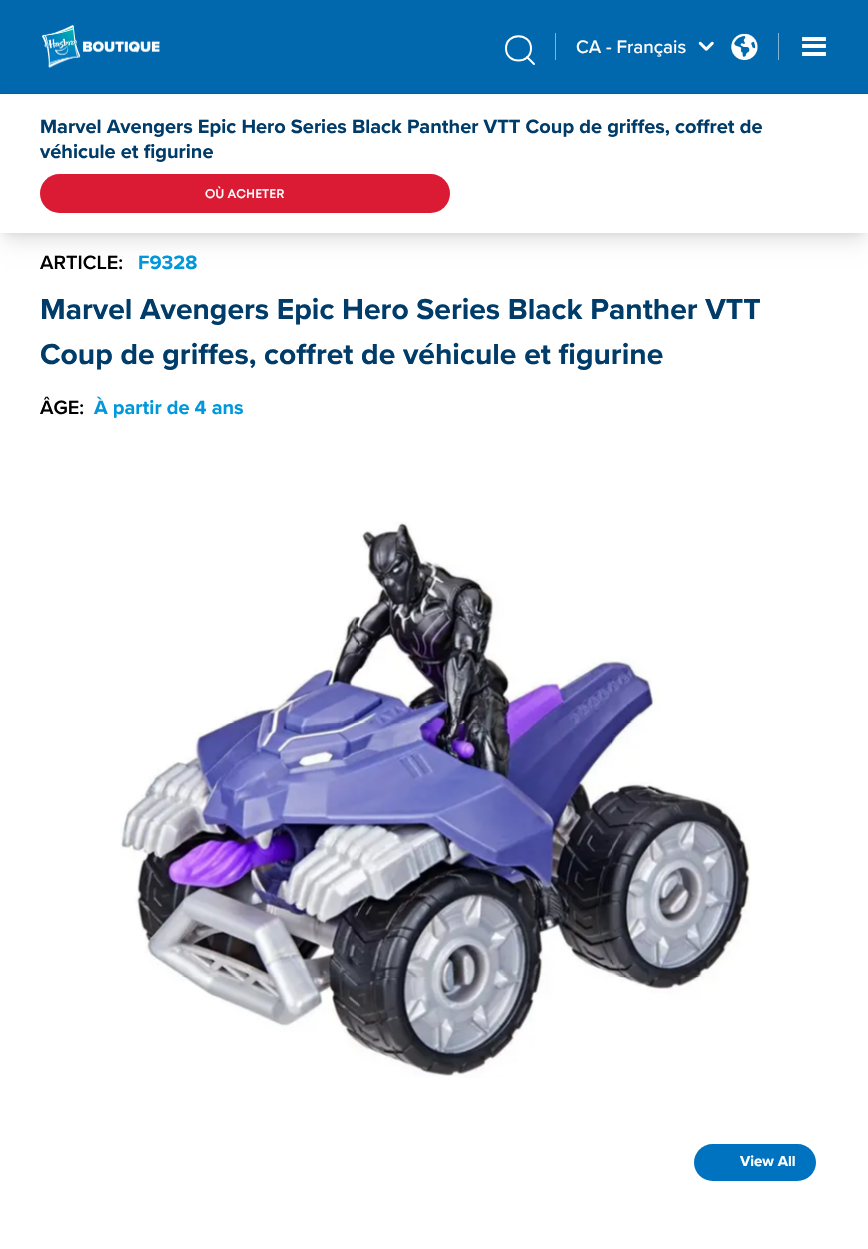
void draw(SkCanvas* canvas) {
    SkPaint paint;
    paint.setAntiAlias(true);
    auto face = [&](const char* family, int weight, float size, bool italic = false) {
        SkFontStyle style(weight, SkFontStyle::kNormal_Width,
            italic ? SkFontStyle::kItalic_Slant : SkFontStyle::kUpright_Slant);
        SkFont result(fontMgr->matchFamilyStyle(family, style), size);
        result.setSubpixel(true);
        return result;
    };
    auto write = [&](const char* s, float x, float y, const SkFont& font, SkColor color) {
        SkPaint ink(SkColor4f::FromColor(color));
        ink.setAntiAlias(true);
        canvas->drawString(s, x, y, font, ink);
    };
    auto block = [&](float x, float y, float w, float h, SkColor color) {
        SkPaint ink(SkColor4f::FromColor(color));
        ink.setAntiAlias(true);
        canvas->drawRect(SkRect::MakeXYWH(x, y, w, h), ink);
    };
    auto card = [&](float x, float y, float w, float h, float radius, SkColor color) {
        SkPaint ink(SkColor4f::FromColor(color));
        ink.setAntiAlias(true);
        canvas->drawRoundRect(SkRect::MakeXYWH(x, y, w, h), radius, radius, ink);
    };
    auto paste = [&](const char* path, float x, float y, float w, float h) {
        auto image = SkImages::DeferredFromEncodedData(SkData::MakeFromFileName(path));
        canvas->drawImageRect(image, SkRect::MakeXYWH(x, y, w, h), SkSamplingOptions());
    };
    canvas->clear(SK_ColorWHITE);
    paint.setColor(SkColorSetARGB(26, 0, 0, 0));
    paint.setMaskFilter(SkMaskFilter::MakeBlur(kNormal_SkBlurStyle, 4));
    canvas->drawRect(SkRect::MakeXYWH(5, 104, 859, 129), paint);
    paint.setMaskFilter(nullptr);
    paint.setMaskFilter(SkMaskFilter::MakeBlur(kNormal_SkBlurStyle, 9.5f));
    canvas->drawRect(SkRect::MakeXYWH(4, 110, 861, 131), paint);
    paint.setMaskFilter(nullptr);
    block(0, 0, 868, 93, SkColorSetRGB(1, 104, 173));
    block(0, 93, 868, 1, SkColorSetRGB(1, 95, 159));
    paste("pic1.png", 42, 25, 118, 43);
    paint.setStyle(SkPaint::kStroke_Style);
    paint.setStrokeWidth(2);
    paint.setStrokeCap(SkPaint::kRound_Cap);
    paint.setStrokeJoin(SkPaint::kRound_Join);
    paint.setColor(SK_ColorWHITE);
    canvas->drawPath(SkPathBuilder().moveTo(534, 64).lineTo(527, 57).moveTo(531, 48.5f).cubicTo(531, 64.5f, 506, 64.5f, 506, 48.5f).cubicTo(506, 32, 531, 32, 531, 48.5f).close().detach(), paint);
    block(555, 33, 1, 27, SkColorSetRGB(128, 180, 214));
    auto kFont1 = face("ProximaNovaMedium", 500, 18.75f);
    write("CA - Français", 576, 53, kFont1, SK_ColorWHITE);
    paste("pic2.png", 698, 41, 16, 10);
    paste("pic3.png", 731, 33, 27, 27);
    block(778, 33, 1, 27, SkColorSetRGB(128, 180, 214));
    paint.setStrokeWidth(3.8f);
    paint.setStrokeCap(SkPaint::kSquare_Cap);
    canvas->drawPath(SkPathBuilder().moveTo(804, 39).lineTo(824, 39).moveTo(804, 46).lineTo(824, 46).moveTo(804, 54).lineTo(824, 54).detach(), paint);
    block(0, 96, 868, 137, SK_ColorWHITE);
    auto kFont2 = face("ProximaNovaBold", 700, 20);
    write("Marvel Avengers Epic Hero Series Black Panther VTT Coup de griffes, coffret de", 40, 133, kFont2, SkColorSetRGB(0, 60, 105));
    write("véhicule et figurine", 40, 158, kFont2, SkColorSetRGB(0, 60, 105));
    card(40, 174, 410, 39, 19.5f, SkColorSetRGB(219, 26, 51));
    auto kFont3 = face("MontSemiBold", 600, 12.5f);
    write("OÙ ACHETER", 205, 198, kFont3, SK_ColorWHITE);
    auto kFont4 = face("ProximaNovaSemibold", 600, 20);
    write("ARTICLE:", 40, 269, kFont4, SK_ColorBLACK);
    write("F9328", 138, 269, kFont2, SkColorSetRGB(0, 152, 219));
    auto kFont5 = face("ProximaNovaBold", 700, 30);
    write("Marvel Avengers Epic Hero Series Black Panther VTT", 40, 319, kFont5, SkColorSetRGB(0, 60, 105));
    write("Coup de griffes, coffret de véhicule et figurine", 40, 364, kFont5, SkColorSetRGB(0, 60, 105));
    write("ÂGE:", 40, 414, kFont4, SK_ColorBLACK);
    write("À partir de 4 ans", 94, 414, kFont2, SkColorSetRGB(0, 152, 219));
    paste("pic4.png", 120, 521, 631, 557);
    card(694, 1144, 122, 37, 18.5f, SkColorSetRGB(0, 115, 192));
    auto kFont6 = face("ProximaNovaBold", 700, 15);
    write("View All", 740, 1166, kFont6, SK_ColorWHITE);
}
